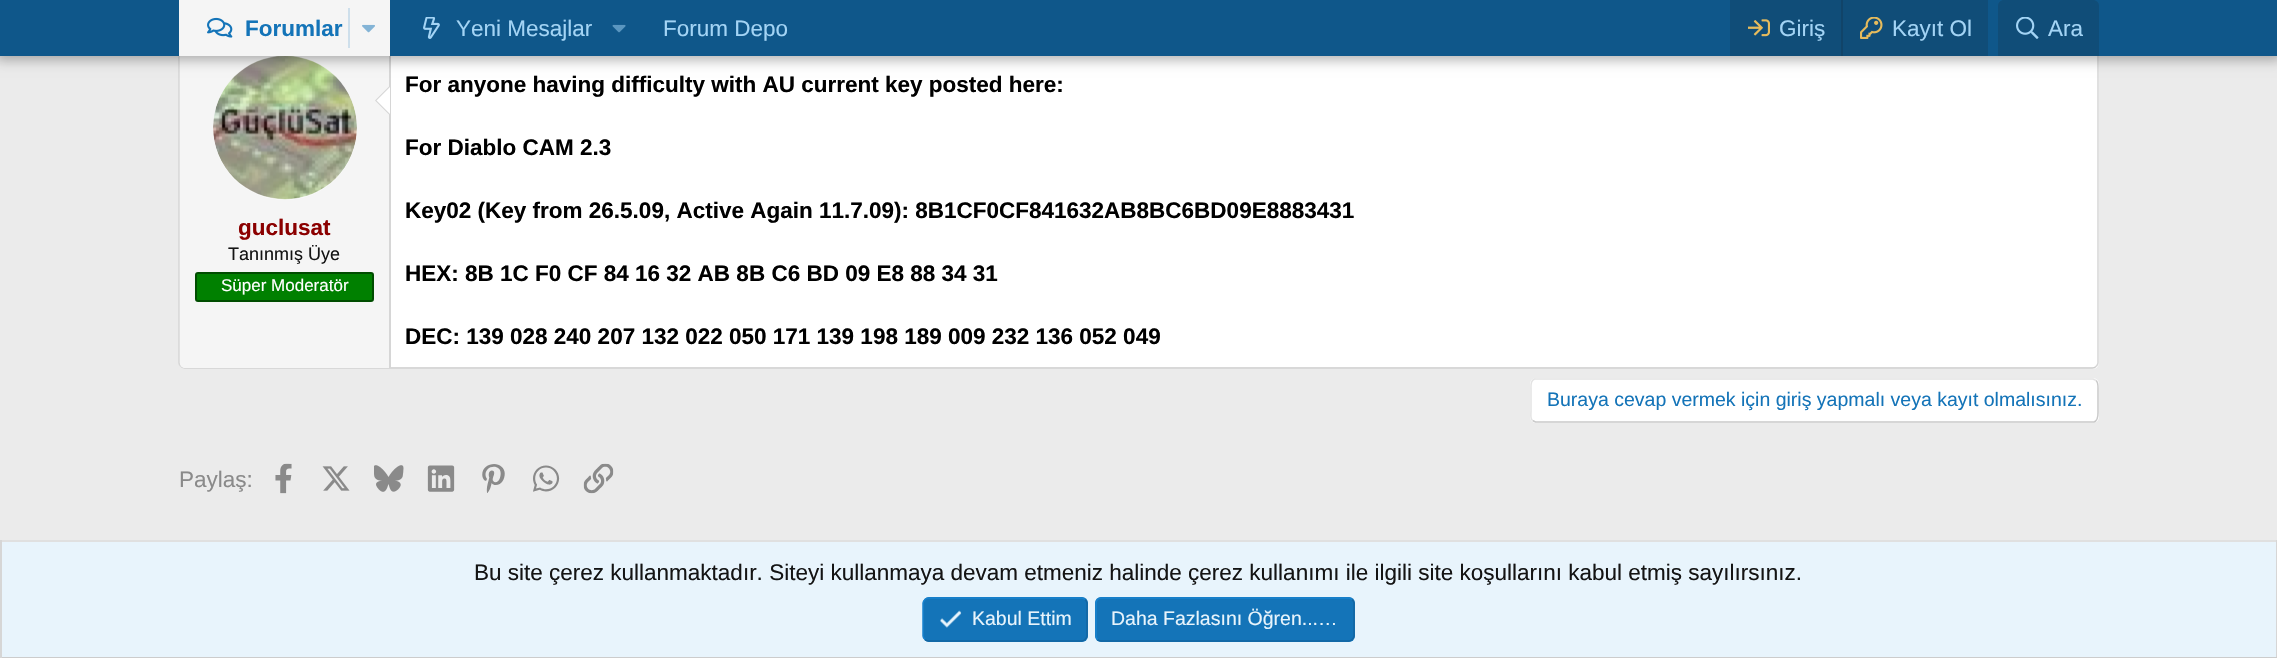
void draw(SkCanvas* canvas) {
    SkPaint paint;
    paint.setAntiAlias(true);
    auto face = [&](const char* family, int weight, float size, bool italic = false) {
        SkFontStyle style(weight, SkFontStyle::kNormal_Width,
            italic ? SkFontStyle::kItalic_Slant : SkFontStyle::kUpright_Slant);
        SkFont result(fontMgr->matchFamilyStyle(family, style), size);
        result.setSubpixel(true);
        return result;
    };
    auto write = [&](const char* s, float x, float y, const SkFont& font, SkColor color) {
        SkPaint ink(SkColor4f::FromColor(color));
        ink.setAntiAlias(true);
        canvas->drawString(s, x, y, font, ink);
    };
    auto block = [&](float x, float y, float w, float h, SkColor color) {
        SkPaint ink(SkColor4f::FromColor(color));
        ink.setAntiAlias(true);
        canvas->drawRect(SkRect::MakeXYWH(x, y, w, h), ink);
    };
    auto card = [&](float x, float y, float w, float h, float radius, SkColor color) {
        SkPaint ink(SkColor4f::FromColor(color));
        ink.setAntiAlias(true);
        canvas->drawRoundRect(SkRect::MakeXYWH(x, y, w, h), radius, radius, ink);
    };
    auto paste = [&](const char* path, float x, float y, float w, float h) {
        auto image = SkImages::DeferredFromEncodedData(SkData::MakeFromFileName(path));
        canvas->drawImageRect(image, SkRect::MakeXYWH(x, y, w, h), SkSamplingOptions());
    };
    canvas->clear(SkColorSetRGB(235, 235, 235));
    card(179, 6, 1920, 363, 6, SK_ColorWHITE);
    paint.setStyle(SkPaint::kStroke_Style);
    paint.setStrokeWidth(1.5f);
    paint.setColor(SkColorSetRGB(214, 214, 214));
    canvas->drawPath(SkPathBuilder().moveTo(2096, 8.5f).cubicTo(2097, 9.5f, 2098, 10.5f, 2098, 12).lineTo(2098, 363).cubicTo(2098, 364.5f, 2097, 365.5f, 2096, 366.5f).detach(), paint);
    paint.setColor(SkColorSetRGB(204, 204, 204));
    canvas->drawPath(SkPathBuilder().moveTo(2096, 366.5f).cubicTo(2095, 367.5f, 2094, 368, 2092.5f, 368).lineTo(184.5f, 368).cubicTo(183, 368, 182, 367.5f, 181, 366.5f).detach(), paint);
    paint.setColor(SkColorSetRGB(214, 214, 214));
    canvas->drawPath(SkPathBuilder().moveTo(181, 366.5f).cubicTo(180, 365.5f, 179, 364.5f, 179, 363).lineTo(179, 12).cubicTo(179, 10.5f, 180, 9.5f, 181, 8.5f).detach(), paint);
    paint.setStyle(SkPaint::kFill_Style);
    paint.setColor(SkColorSetRGB(245, 245, 245));
    canvas->drawPath(SkPathBuilder().moveTo(185, 8).lineTo(390, 8).lineTo(390, 368).lineTo(185, 368).cubicTo(182, 368, 180, 366, 180, 363).lineTo(180, 13).cubicTo(180, 10, 182, 8, 185, 8).close().detach(), paint);
    block(389, 56, 2, 312, SkColorSetRGB(214, 214, 214));
    paint.setColor(SK_ColorWHITE);
    canvas->drawCircle(285, 128, 72, paint);
    paste("pic8.png", 213, 56, 144, 144);
    paint.setColor(SkColorSetARGB(77, 0, 0, 0));
    paint.setMaskFilter(SkMaskFilter::MakeBlur(kNormal_SkBlurStyle, 6));
    canvas->drawRect(SkRect::MakeXYWH(-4, -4, 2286, 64), paint);
    paint.setMaskFilter(nullptr);
    block(0, 0, 2277, 56, SkColorSetRGB(15, 87, 138));
    block(179, 0, 211, 56, SkColorSetRGB(245, 245, 245));
    paste("pic1.png", 207, 17, 26, 21);
    auto kFont1 = face("Liberation Sans", 700, 22.5f);
    write("Forumlar", 245, 36, kFont1, SkColorSetRGB(20, 116, 184));
    block(348, 8, 2, 40, SkColorSetRGB(206, 223, 235));
    paste("pic2.png", 362, 24, 13, 9);
    paste("pic3.png", 423, 17, 17, 22);
    auto kFont2 = face("Liberation Sans", 400, 22.5f);
    write("Yeni Mesajlar", 456, 36, kFont2, SkColorSetRGB(163, 212, 245));
    paste("pic4.png", 612, 24, 14, 9);
    write("Forum Depo", 663, 36, kFont2, SkColorSetRGB(163, 212, 245));
    block(1730, 0, 258, 56, SkColorSetRGB(16, 77, 120));
    paste("pic5.png", 1748, 19, 22, 18);
    write("Giriş", 1779, 36, kFont2, SkColorSetRGB(163, 212, 245));
    block(1841, 0, 2, 56, SkColorSetRGB(17, 68, 105));
    paste("pic6.png", 1860, 17, 23, 22);
    write("Kayıt Ol", 1892, 36, kFont2, SkColorSetRGB(163, 212, 245));
    paint.setColor(SkColorSetRGB(16, 77, 120));
    canvas->drawPath(SkPathBuilder().moveTo(2004, 0).lineTo(2093, 0).cubicTo(2096.5f, 0, 2099, 2.5f, 2099, 6).lineTo(2099, 56).lineTo(1998, 56).lineTo(1998, 6).cubicTo(1998, 2.5f, 2000.5f, 0, 2004, 0).close().detach(), paint);
    paste("pic7.png", 2016, 17, 23, 22);
    write("Ara", 2048, 36, kFont2, SkColorSetRGB(163, 212, 245));
    paint.setColor(SkColorSetRGB(214, 214, 214));
    canvas->drawPath(SkPathBuilder().moveTo(390, 85.5f).lineTo(390, 115.5f).lineTo(375, 100.5f).close().detach(), paint);
    paint.setColor(SK_ColorWHITE);
    canvas->drawPath(SkPathBuilder().moveTo(390, 87).lineTo(390, 114).lineTo(376.5f, 100.5f).close().detach(), paint);
    write("guclusat", 238, 235, kFont1, SkColorSetRGB(139, 0, 0));
    auto kFont3 = face("Liberation Sans", 400, 18);
    write("Tanınmış Üye", 228, 260, kFont3, SkColorSetRGB(20, 20, 20));
    paint.setColor(SkColorSetRGB(0, 128, 0));
    canvas->drawRoundRect(SkRect::MakeXYWH(196, 273, 177, 28), 2, 2, paint);
    paint.setStyle(SkPaint::kStroke_Style);
    paint.setStrokeWidth(2);
    paint.setColor(SkColorSetRGB(0, 77, 0));
    canvas->drawRoundRect(SkRect::MakeXYWH(196, 273, 177, 28), 2, 2, paint);
    auto kFont4 = face("Liberation Sans", 400, 17);
    write("Süper Moderatör", 221, 291, kFont4, SK_ColorWHITE);
    write("For anyone having difficulty with AU current key posted here:", 405, 92, kFont1, SK_ColorBLACK);
    write("For Diablo CAM 2.3", 405, 155, kFont1, SK_ColorBLACK);
    write("Key02 (Key from 26.5.09, Active Again 11.7.09): 8B1CF0CF841632AB8BC6BD09E8883431", 405, 218, kFont1, SK_ColorBLACK);
    write("HEX: 8B 1C F0 CF 84 16 32 AB 8B C6 BD 09 E8 88 34 31", 405, 281, kFont1, SK_ColorBLACK);
    write("DEC: 139 028 240 207 132 022 050 171 139 198 189 009 232 136 052 049", 405, 344, kFont1, SK_ColorBLACK);
    card(1530, 378, 569, 45, 6, SK_ColorWHITE);
    paint.setStrokeWidth(1.5f);
    paint.setColor(SkColorSetRGB(201, 201, 201));
    canvas->drawPath(SkPathBuilder().moveTo(2096, 380.5f).cubicTo(2098.5f, 382.5f, 2098, 386.5f, 2098, 389.5f).lineTo(2098, 411.5f).cubicTo(2098, 415, 2098.5f, 420.5f, 2094, 422).lineTo(1535.5f, 422).lineTo(1532.5f, 420.5f).detach(), paint);
    paint.setColor(SkColorSetRGB(227, 227, 227));
    canvas->drawPath(SkPathBuilder().moveTo(1532.5f, 420.5f).cubicTo(1530, 418.5f, 1531, 414.5f, 1531, 411.5f).lineTo(1531, 389.5f).cubicTo(1531, 386, 1530, 380.5f, 1534.5f, 379).lineTo(2093, 379).lineTo(2096, 380.5f).detach(), paint);
    auto kFont5 = face("Liberation Sans", 400, 19.5f);
    write("Buraya cevap vermek için giriş yapmalı veya kayıt olmalısınız.", 1547, 406, kFont5, SkColorSetRGB(20, 116, 184));
    write("Paylaş:", 179, 487, kFont2, SkColorSetRGB(138, 138, 138));
    paste("pic9.png", 275, 463, 17, 31);
    paste("pic10.png", 322, 466, 28, 25);
    paste("pic11.png", 374, 465, 30, 27);
    paste("pic12.png", 427, 465, 28, 27);
    paste("pic13.png", 482, 464, 23, 29);
    paste("pic14.png", 533, 465, 27, 27);
    paste("pic15.png", 583, 463, 31, 31);
    block(2, 542, 2274, 115, SkColorSetRGB(232, 244, 252));
    block(0, 540, 2277, 2, SkColorSetRGB(224, 224, 224));
    block(2276, 540, 1, 118, SkColorSetRGB(214, 214, 214));
    block(0, 657, 2277, 1, SkColorSetRGB(204, 204, 204));
    block(0, 540, 2, 118, SkColorSetRGB(214, 214, 214));
    write("Bu site çerez kullanmaktadır. Siteyi kullanmaya devam etmeniz halinde çerez kullanımı ile ilgili site koşullarını kabul etmiş sayılırsınız.", 474, 580, kFont2, SkColorSetRGB(20, 20, 20));
    card(923, 597, 165, 45, 6, SkColorSetRGB(20, 116, 184));
    paint.setColor(SkColorSetRGB(18, 101, 161));
    canvas->drawPath(SkPathBuilder().moveTo(1085, 599.5f).cubicTo(1086, 600.5f, 1087, 601.5f, 1087, 603).lineTo(1087, 636).cubicTo(1087, 637.5f, 1086, 638.5f, 1085, 639.5f).cubicTo(1084, 640.5f, 1083, 641, 1081.5f, 641).lineTo(928.5f, 641).cubicTo(927, 641, 926, 640.5f, 925, 639.5f).detach(), paint);
    paint.setColor(SkColorSetRGB(23, 130, 207));
    canvas->drawPath(SkPathBuilder().moveTo(925, 639.5f).cubicTo(924, 638.5f, 923, 637.5f, 923, 636).lineTo(923, 603).cubicTo(923, 601.5f, 924, 600.5f, 925, 599.5f).cubicTo(926, 598.5f, 927, 598, 928.5f, 598).lineTo(1081.5f, 598).cubicTo(1083, 598, 1084, 598.5f, 1085, 599.5f).detach(), paint);
    paste("pic16.png", 940, 610, 22, 18);
    write("Kabul Ettim", 972, 625, kFont5, SkColorSetRGB(232, 244, 252));
    card(1095, 597, 260, 45, 6, SkColorSetRGB(20, 116, 184));
    paint.setColor(SkColorSetRGB(18, 101, 161));
    canvas->drawPath(SkPathBuilder().moveTo(1352, 599.5f).cubicTo(1353, 600.5f, 1354, 601.5f, 1354, 603).lineTo(1354, 636).cubicTo(1354, 637.5f, 1353, 638.5f, 1352, 639.5f).cubicTo(1351, 640.5f, 1350, 641, 1348.5f, 641).lineTo(1101, 641).cubicTo(1099.5f, 641, 1098.5f, 640.5f, 1097.5f, 639.5f).detach(), paint);
    paint.setColor(SkColorSetRGB(23, 130, 207));
    canvas->drawPath(SkPathBuilder().moveTo(1097.5f, 639.5f).cubicTo(1096.5f, 638.5f, 1096, 637.5f, 1096, 636).lineTo(1096, 603).cubicTo(1096, 601.5f, 1096.5f, 600.5f, 1097.5f, 599.5f).cubicTo(1098.5f, 598.5f, 1099.5f, 598, 1101, 598).lineTo(1348.5f, 598).cubicTo(1350, 598, 1351, 598.5f, 1352, 599.5f).detach(), paint);
    write("Daha Fazlasını Öğren...…", 1111, 625, kFont5, SkColorSetRGB(232, 244, 252));
}
